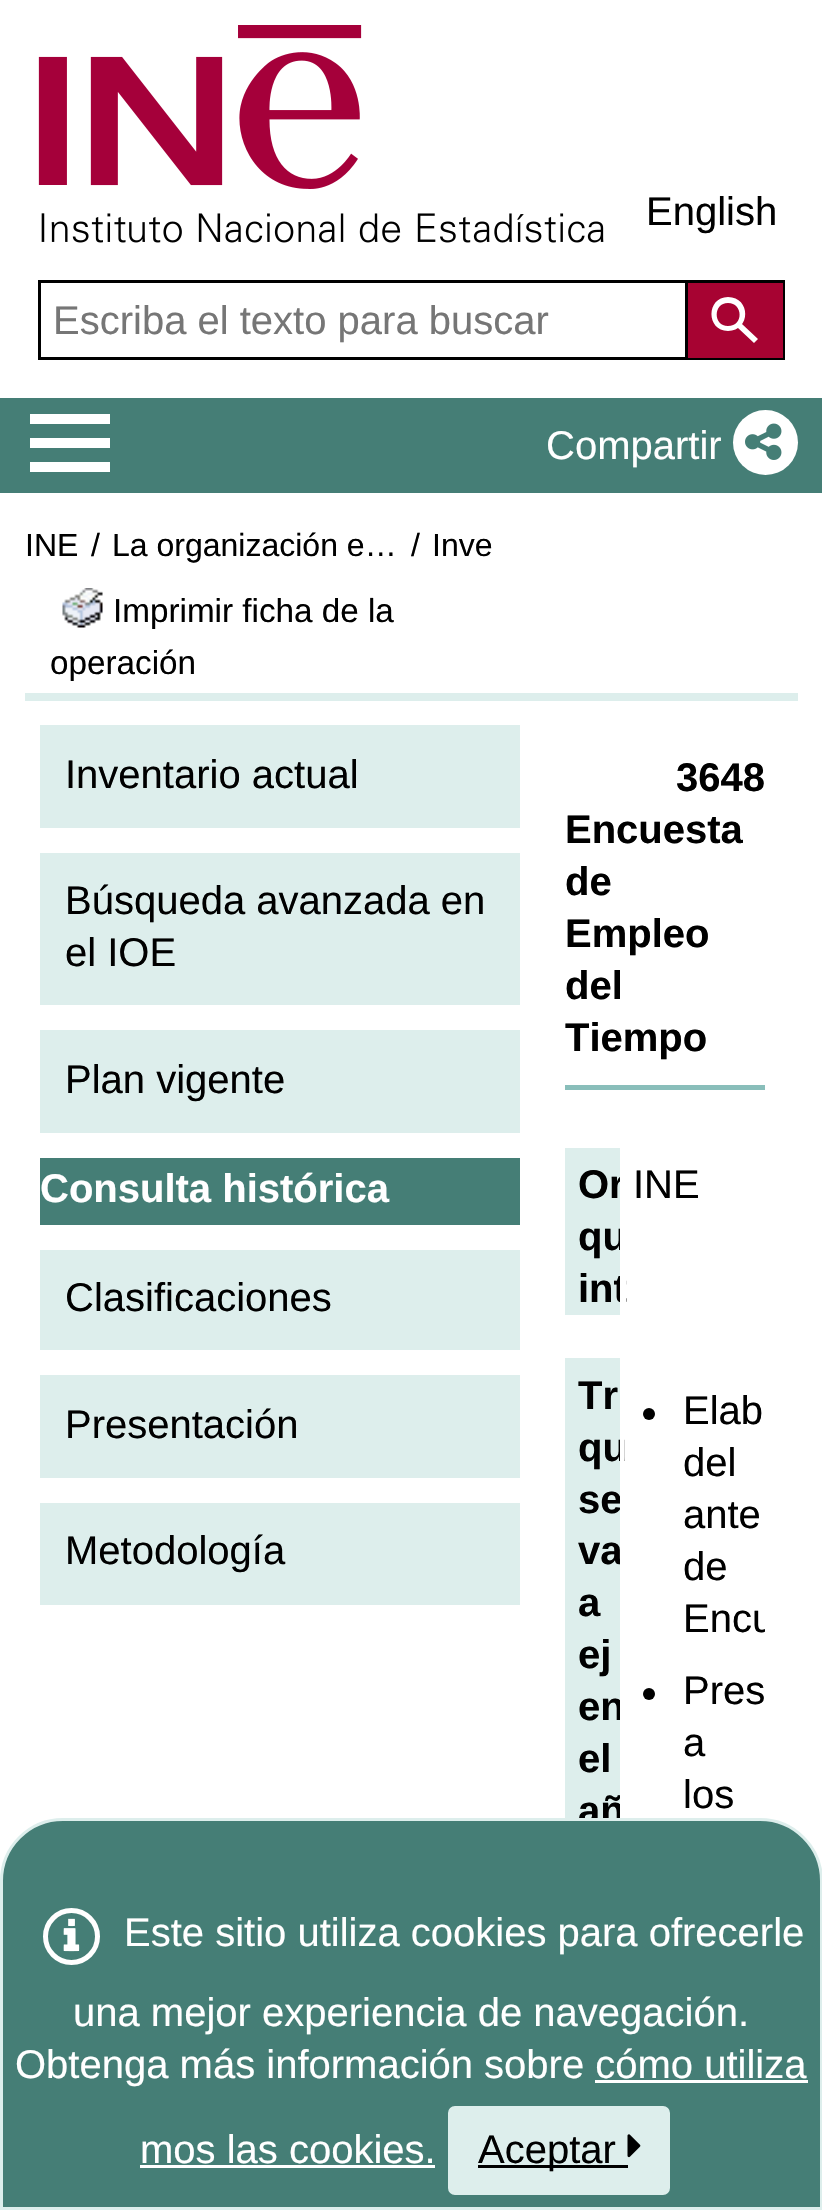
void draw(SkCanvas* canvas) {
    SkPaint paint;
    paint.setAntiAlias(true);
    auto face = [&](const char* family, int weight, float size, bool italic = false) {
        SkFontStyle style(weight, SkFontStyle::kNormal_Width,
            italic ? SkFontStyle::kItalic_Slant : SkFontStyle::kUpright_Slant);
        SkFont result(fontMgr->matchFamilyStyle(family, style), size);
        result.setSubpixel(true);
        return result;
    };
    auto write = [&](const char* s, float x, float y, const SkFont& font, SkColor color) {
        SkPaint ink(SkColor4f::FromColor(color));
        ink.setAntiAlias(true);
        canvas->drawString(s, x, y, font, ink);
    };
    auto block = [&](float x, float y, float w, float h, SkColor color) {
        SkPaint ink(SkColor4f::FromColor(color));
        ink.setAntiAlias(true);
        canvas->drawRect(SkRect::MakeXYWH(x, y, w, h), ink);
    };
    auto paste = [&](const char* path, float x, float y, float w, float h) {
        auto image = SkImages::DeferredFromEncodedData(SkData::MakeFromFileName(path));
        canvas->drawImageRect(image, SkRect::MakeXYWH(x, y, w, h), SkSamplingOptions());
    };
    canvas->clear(SK_ColorWHITE);
    paste("pic1.png", 38, 25, 566, 218);
    auto kFont1 = face("Liberation Sans", 400, 40);
    write("English", 646, 225, kFont1, SK_ColorBLACK);
    paint.setStyle(SkPaint::kStroke_Style);
    paint.setStrokeWidth(3);
    paint.setColor(SK_ColorBLACK);
    canvas->drawRect(SkRect::MakeXYWH(39.5f, 281.5f, 657, 77), paint);
    write("Escriba el texto para buscar", 53, 334, kFont1, SkColorSetRGB(118, 118, 118));
    canvas->drawRect(SkRect::MakeXYWH(686.5f, 281.5f, 97, 77), paint);
    block(688, 283, 95, 75, SkColorSetRGB(167, 3, 50));
    paint.setStyle(SkPaint::kFill_Style);
    paint.setColor(SK_ColorWHITE);
    canvas->drawPath(SkPathBuilder().moveTo(728, 331).cubicTo(706, 331, 706, 297, 728, 297).cubicTo(751, 297, 751, 331, 728, 331).close().moveTo(728, 326).cubicTo(744, 326, 743, 303, 728, 303).cubicTo(713, 303, 713, 326, 728, 326).close().moveTo(754, 343).lineTo(738, 328).lineTo(742, 324).lineTo(758, 339).close().detach(), paint);
    block(0, 398, 822, 95, SkColorSetRGB(69, 126, 118));
    canvas->drawPath(SkPathBuilder().moveTo(110, 423).lineTo(110, 414).lineTo(30, 414).lineTo(30, 424).lineTo(110, 424).close().moveTo(110, 447).lineTo(110, 438).lineTo(30, 438).lineTo(30, 448).lineTo(110, 448).close().moveTo(110, 471).lineTo(110, 462).lineTo(30, 462).lineTo(30, 472).lineTo(110, 472).close().detach(), paint);
    write("Compartir", 546, 459, kFont1, SK_ColorWHITE);
    canvas->drawCircle(765.5f, 442.5f, 32.5f, paint);
    paste("pic2.png", 745, 423, 37, 37);
    block(25, 693, 773, 8, SkColorSetRGB(221, 238, 236));
    auto kFont2 = face("Liberation Sans", 400, 32);
    write("INE", 25, 556, kFont2, SK_ColorBLACK);
    write("/", 91, 556, kFont2, SK_ColorBLACK);
    write("La organización e…", 112, 556, kFont2, SK_ColorBLACK);
    write("/", 411, 556, kFont2, SK_ColorBLACK);
    write("Inve", 432, 556, kFont2, SK_ColorBLACK);
    paste("pic3.png", 62, 588, 41, 40);
    auto kFont3 = face("Liberation Sans", 400, 33.25f);
    write("Imprimir ficha de la", 113, 622, kFont3, SK_ColorBLACK);
    write("operación", 50, 674, kFont3, SK_ColorBLACK);
    block(40, 725, 480, 103, SkColorSetRGB(221, 238, 236));
    write("Inventario actual", 65, 788, kFont1, SK_ColorBLACK);
    block(40, 853, 480, 152, SkColorSetRGB(221, 238, 236));
    write("Búsqueda avanzada en", 65, 914, kFont1, SK_ColorBLACK);
    write("el IOE", 65, 966, kFont1, SK_ColorBLACK);
    block(40, 1030, 480, 103, SkColorSetRGB(221, 238, 236));
    write("Plan vigente", 65, 1093, kFont1, SK_ColorBLACK);
    block(40, 1158, 480, 67, SkColorSetRGB(69, 126, 118));
    auto kFont4 = face("Liberation Sans", 700, 40);
    write("Consulta histórica", 40, 1202, kFont4, SK_ColorWHITE);
    block(40, 1250, 480, 100, SkColorSetRGB(221, 238, 236));
    write("Clasificaciones", 65, 1311, kFont1, SK_ColorBLACK);
    block(40, 1375, 480, 103, SkColorSetRGB(221, 238, 236));
    write("Presentación", 65, 1438, kFont1, SK_ColorBLACK);
    block(40, 1503, 480, 102, SkColorSetRGB(221, 238, 236));
    write("Metodología", 65, 1564, kFont1, SK_ColorBLACK);
    write("3648", 676, 791, kFont4, SK_ColorBLACK);
    write("Encuesta", 565, 843, kFont4, SK_ColorBLACK);
    write("de", 565, 895, kFont4, SK_ColorBLACK);
    write("Empleo", 565, 947, kFont4, SK_ColorBLACK);
    write("del", 565, 999, kFont4, SK_ColorBLACK);
    write("Tiempo", 565, 1051, kFont4, SK_ColorBLACK);
    block(565, 1085, 200, 5, SkColorSetRGB(137, 190, 186));
    block(565, 1148, 55, 167, SkColorSetRGB(221, 238, 236));
    write("Or", 578, 1198, kFont4, SK_ColorBLACK);
    write("qu", 578, 1250, kFont4, SK_ColorBLACK);
    write("int", 578, 1302, kFont4, SK_ColorBLACK);
    block(620, 1176, 6, 127, SK_ColorWHITE);
    write("INE", 633, 1198, kFont1, SK_ColorBLACK);
    block(565, 1358, 55, 460, SkColorSetRGB(221, 238, 236));
    write("Tr", 578, 1409, kFont4, SK_ColorBLACK);
    write("qu", 578, 1461, kFont4, SK_ColorBLACK);
    write("se", 578, 1513, kFont4, SK_ColorBLACK);
    write("va", 578, 1564, kFont4, SK_ColorBLACK);
    write("a", 578, 1616, kFont4, SK_ColorBLACK);
    write("ej", 578, 1668, kFont4, SK_ColorBLACK);
    write("en", 578, 1720, kFont4, SK_ColorBLACK);
    write("el", 578, 1772, kFont4, SK_ColorBLACK);
    write("añ", 578, 1824, kFont4, SK_ColorBLACK);
    block(620, 1439, 4, 379, SK_ColorWHITE);
    paint.setColor(SK_ColorBLACK);
    canvas->drawCircle(649, 1414, 6, paint);
    write("Elab", 683, 1424, kFont1, SK_ColorBLACK);
    write("del", 683, 1476, kFont1, SK_ColorBLACK);
    write("ante", 683, 1528, kFont1, SK_ColorBLACK);
    write("de", 683, 1580, kFont1, SK_ColorBLACK);
    canvas->save();
    canvas->clipRect(SkRect::MakeXYWH(565, 1345, 200, 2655));
    write("Encu", 683, 1632, kFont1, SK_ColorBLACK);
    canvas->restore();
    canvas->drawCircle(649, 1694, 6, paint);
    write("Pres", 683, 1704, kFont1, SK_ColorBLACK);
    write("a", 683, 1756, kFont1, SK_ColorBLACK);
    write("los", 683, 1808, kFont1, SK_ColorBLACK);
    paint.setColor(SkColorSetRGB(69, 126, 118));
    canvas->drawPath(SkPathBuilder().moveTo(63, 1819.5f).lineTo(760, 1819.5f).cubicTo(794, 1819.5f, 821.5f, 1847, 821.5f, 1881).lineTo(821.5f, 2208.5f).lineTo(1.5f, 2208.5f).lineTo(1.5f, 1881).cubicTo(1.5f, 1847, 29, 1819.5f, 63, 1819.5f).close().detach(), paint);
    paint.setStyle(SkPaint::kStroke_Style);
    paint.setColor(SkColorSetRGB(221, 238, 236));
    canvas->drawPath(SkPathBuilder().moveTo(63, 1819.5f).lineTo(760, 1819.5f).cubicTo(794, 1819.5f, 821.5f, 1847, 821.5f, 1881).lineTo(821.5f, 2208.5f).lineTo(1.5f, 2208.5f).lineTo(1.5f, 1881).cubicTo(1.5f, 1847, 29, 1819.5f, 63, 1819.5f).close().detach(), paint);
    paint.setStrokeWidth(5);
    paint.setColor(SK_ColorWHITE);
    canvas->drawCircle(71.5f, 1936.5f, 26, paint);
    paste("pic4.png", 63, 1918, 17, 34);
    write("Este sitio utiliza cookies para ofrecerle", 124, 1946, kFont1, SK_ColorWHITE);
    write("una mejor experiencia de navegación.", 73, 2026, kFont1, SK_ColorWHITE);
    write("Obtenga más información sobre cómo utiliza", 15, 2078, kFont1, SK_ColorWHITE);
    write("mos las cookies.", 140, 2163, kFont1, SK_ColorWHITE);
    block(595, 2080, 213, 3, SK_ColorWHITE);
    block(140, 2165, 295, 3, SK_ColorWHITE);
    paint.setStyle(SkPaint::kFill_Style);
    paint.setColor(SkColorSetRGB(221, 238, 236));
    canvas->drawRoundRect(SkRect::MakeXYWH(446.5f, 2104.5f, 225, 92), 8.5f, 8.5f, paint);
    paint.setStyle(SkPaint::kStroke_Style);
    paint.setStrokeWidth(3);
    paint.setColor(SkColorSetRGB(69, 126, 118));
    canvas->drawRoundRect(SkRect::MakeXYWH(446.5f, 2104.5f, 225, 92), 8.5f, 8.5f, paint);
    block(478, 2165, 150, 3, SK_ColorBLACK);
    write("Aceptar", 478, 2163, kFont1, SK_ColorBLACK);
    paste("pic5.png", 627, 2134, 14, 24);
}
